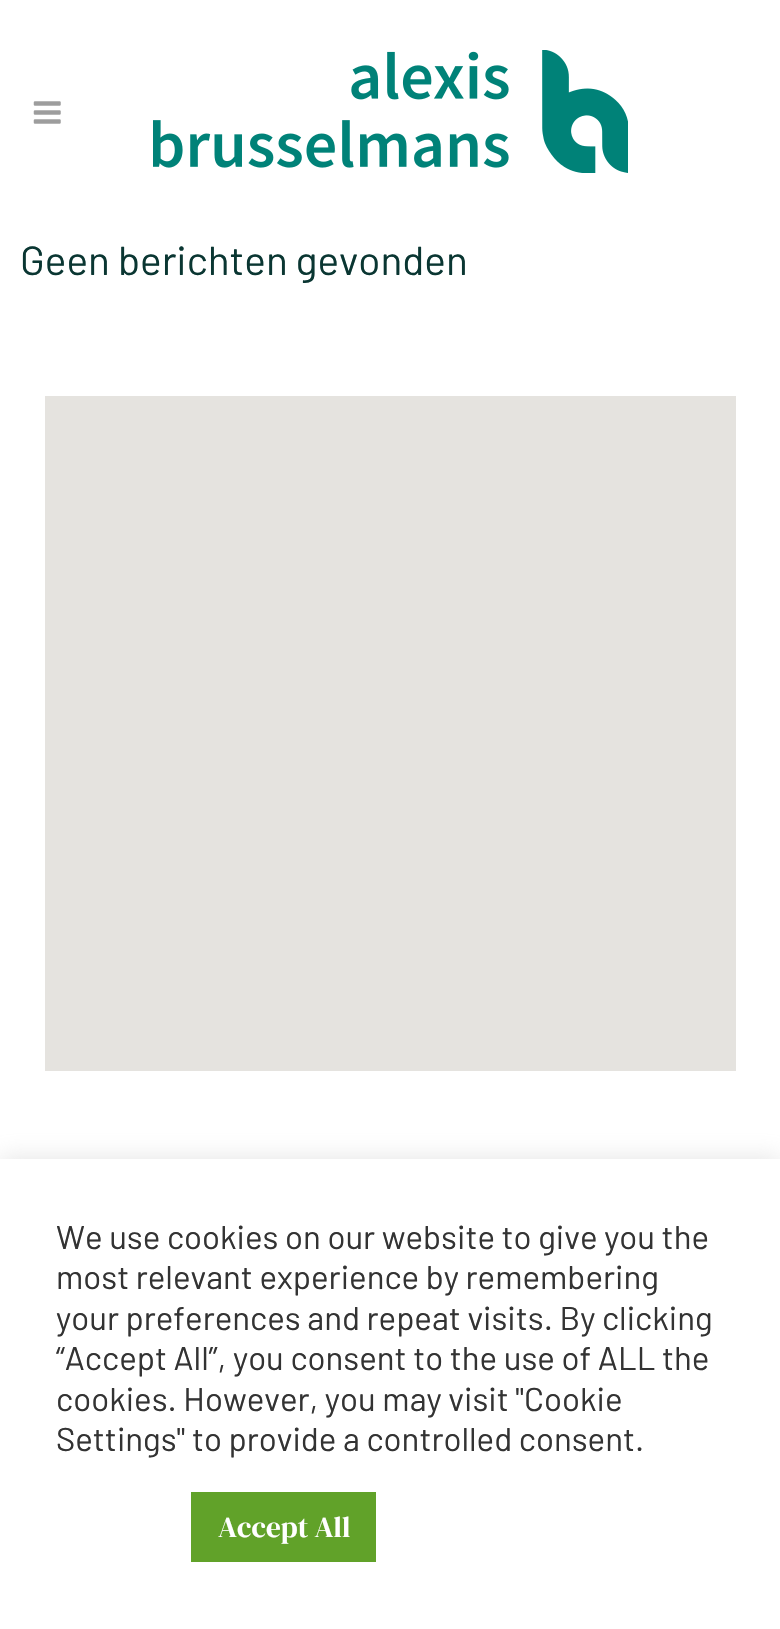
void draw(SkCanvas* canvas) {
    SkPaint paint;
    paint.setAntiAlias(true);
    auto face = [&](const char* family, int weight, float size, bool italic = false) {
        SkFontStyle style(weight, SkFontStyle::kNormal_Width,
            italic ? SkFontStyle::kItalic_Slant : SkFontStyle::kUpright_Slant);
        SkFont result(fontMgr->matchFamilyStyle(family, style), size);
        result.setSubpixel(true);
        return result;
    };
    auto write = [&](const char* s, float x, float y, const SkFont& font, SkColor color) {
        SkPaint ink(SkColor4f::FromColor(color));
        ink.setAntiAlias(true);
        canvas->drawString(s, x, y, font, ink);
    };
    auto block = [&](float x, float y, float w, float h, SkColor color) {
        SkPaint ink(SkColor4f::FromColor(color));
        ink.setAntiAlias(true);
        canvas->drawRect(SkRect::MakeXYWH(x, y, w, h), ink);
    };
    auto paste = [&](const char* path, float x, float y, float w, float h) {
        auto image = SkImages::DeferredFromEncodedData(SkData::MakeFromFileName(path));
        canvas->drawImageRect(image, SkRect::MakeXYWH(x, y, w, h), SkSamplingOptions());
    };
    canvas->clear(SK_ColorWHITE);
    paste("pic1.png", 33, 101, 28, 23);
    paste("pic2.png", 153, 50, 475, 123);
    auto kFont1 = face("Barlow", 400, 40.5f);
    write("Geen berichten gevonden", 20, 275, kFont1, SkColorSetRGB(10, 54, 50));
    block(45, 396, 691, 675, SkColorSetRGB(229, 227, 223));
    paint.setColor(SkColorSetARGB(77, 172, 171, 171));
    paint.setMaskFilter(SkMaskFilter::MakeBlur(kNormal_SkBlurStyle, 11));
    canvas->drawRect(SkRect::MakeXYWH(0, 1157, 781, 470), paint);
    paint.setMaskFilter(nullptr);
    block(0, 1159, 780, 470, SK_ColorWHITE);
    auto kFont2 = face("Barlow", 400, 33);
    write("We use cookies on our website to give you the", 56, 1249, kFont2, SkColorSetRGB(51, 51, 51));
    write("most relevant experience by remembering", 56, 1289, kFont2, SkColorSetRGB(51, 51, 51));
    write("your preferences and repeat visits. By clicking", 56, 1330, kFont2, SkColorSetRGB(51, 51, 51));
    write("“Accept All”, you consent to the use of ALL the", 56, 1370, kFont2, SkColorSetRGB(51, 51, 51));
    write("cookies. However, you may visit \"Cookie", 56, 1411, kFont2, SkColorSetRGB(51, 51, 51));
    write("Settings\" to provide a controlled consent.", 56, 1451, kFont2, SkColorSetRGB(51, 51, 51));
    block(191, 1492, 185, 70, SkColorSetRGB(97, 162, 41));
    auto kFont3 = face("DM Serif Display", 400, 29.25f);
    write("Accept All", 218, 1537, kFont3, SK_ColorWHITE);
}
